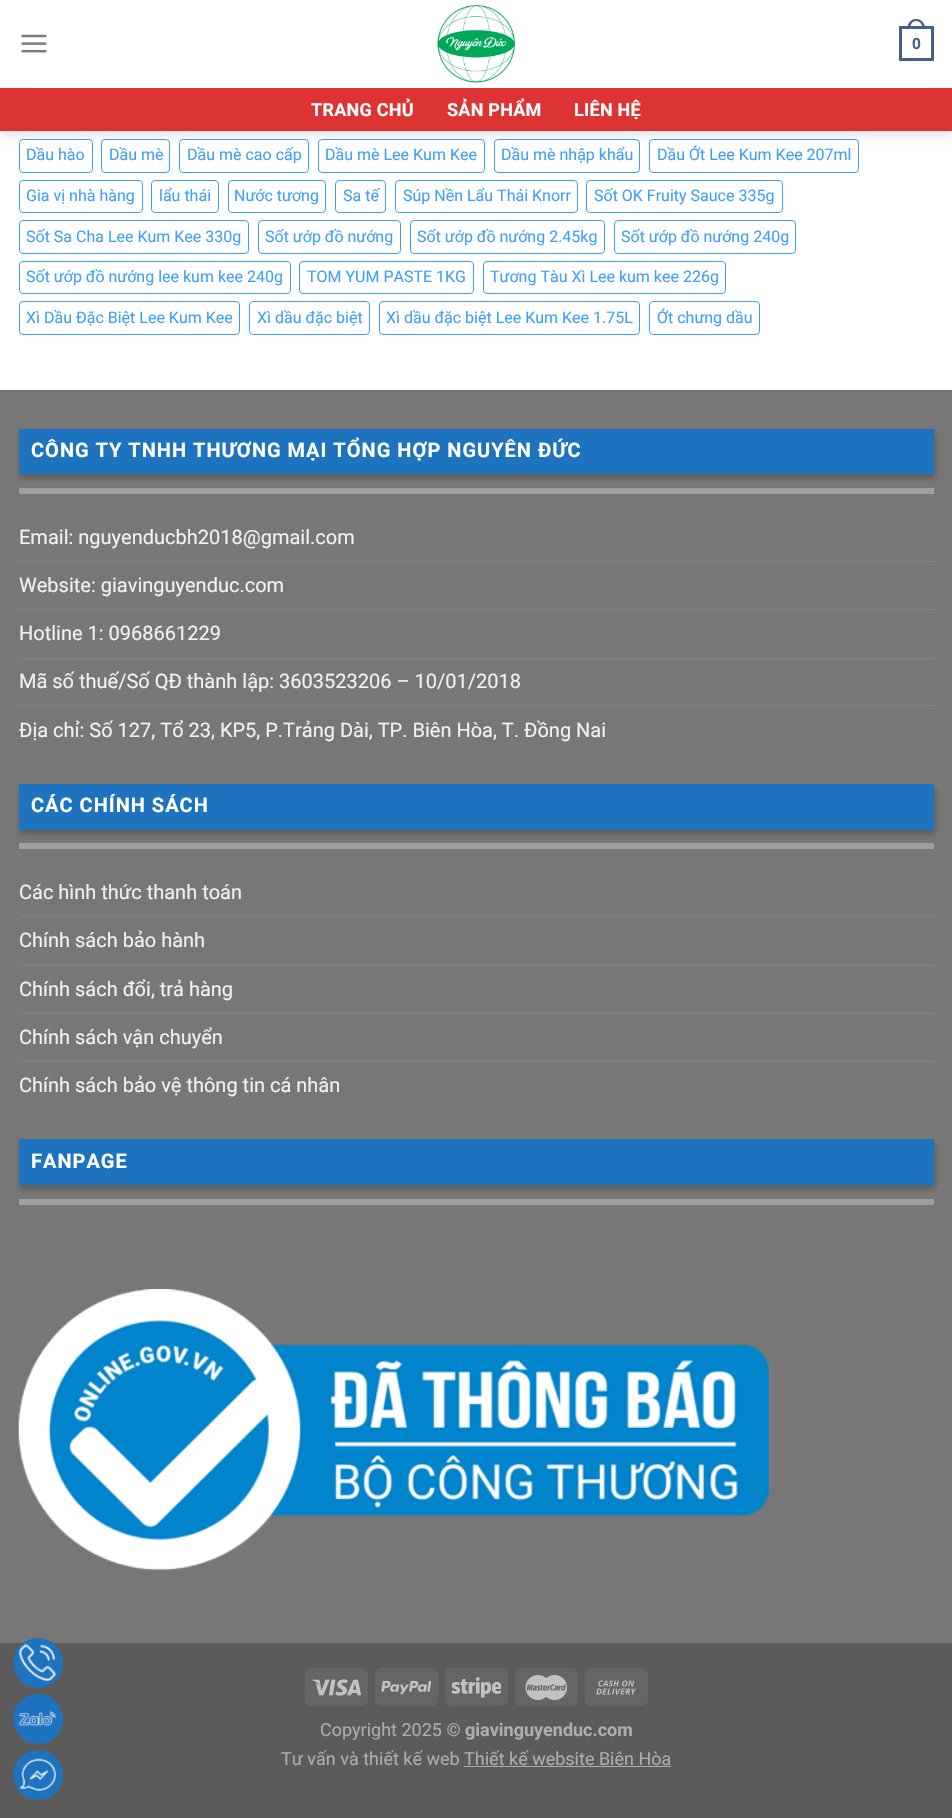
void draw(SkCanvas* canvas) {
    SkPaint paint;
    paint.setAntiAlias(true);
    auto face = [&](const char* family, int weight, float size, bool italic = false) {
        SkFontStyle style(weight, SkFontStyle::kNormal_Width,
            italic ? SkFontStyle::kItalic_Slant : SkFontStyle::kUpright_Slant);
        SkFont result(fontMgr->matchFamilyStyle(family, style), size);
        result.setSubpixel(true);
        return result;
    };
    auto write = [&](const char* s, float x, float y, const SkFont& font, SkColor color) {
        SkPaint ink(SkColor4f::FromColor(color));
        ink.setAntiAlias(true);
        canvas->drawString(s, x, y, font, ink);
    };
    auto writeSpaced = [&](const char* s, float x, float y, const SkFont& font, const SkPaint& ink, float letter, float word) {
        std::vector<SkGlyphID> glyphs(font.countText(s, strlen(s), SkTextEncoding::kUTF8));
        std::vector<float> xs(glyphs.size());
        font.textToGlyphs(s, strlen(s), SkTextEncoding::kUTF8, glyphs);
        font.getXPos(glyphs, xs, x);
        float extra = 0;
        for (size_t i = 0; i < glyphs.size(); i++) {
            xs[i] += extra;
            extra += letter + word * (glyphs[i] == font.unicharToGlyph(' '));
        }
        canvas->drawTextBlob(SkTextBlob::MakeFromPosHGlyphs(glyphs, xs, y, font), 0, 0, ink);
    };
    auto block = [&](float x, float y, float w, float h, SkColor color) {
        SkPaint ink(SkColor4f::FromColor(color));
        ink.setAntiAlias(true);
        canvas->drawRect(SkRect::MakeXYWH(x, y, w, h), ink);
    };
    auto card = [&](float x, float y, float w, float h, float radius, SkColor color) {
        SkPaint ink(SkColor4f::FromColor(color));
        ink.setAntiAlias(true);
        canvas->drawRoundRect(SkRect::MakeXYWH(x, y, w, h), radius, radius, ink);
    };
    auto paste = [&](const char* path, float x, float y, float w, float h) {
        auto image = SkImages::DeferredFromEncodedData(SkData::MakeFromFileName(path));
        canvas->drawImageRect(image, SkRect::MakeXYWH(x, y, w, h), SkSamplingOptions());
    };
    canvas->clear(SK_ColorWHITE);
    paint.setStyle(SkPaint::kStroke_Style);
    paint.setStrokeWidth(1);
    paint.setColor(SkColorSetRGB(61, 160, 253));
    canvas->drawRoundRect(SkRect::MakeXYWH(19.5f, 139.5f, 73, 33), 3.5f, 3.5f, paint);
    canvas->drawRoundRect(SkRect::MakeXYWH(101.5f, 139.5f, 68, 33), 3.5f, 3.5f, paint);
    canvas->drawRoundRect(SkRect::MakeXYWH(179.5f, 139.5f, 129, 33), 3.5f, 3.5f, paint);
    canvas->drawRoundRect(SkRect::MakeXYWH(318.5f, 139.5f, 166, 33), 3.5f, 3.5f, paint);
    canvas->drawRoundRect(SkRect::MakeXYWH(494.5f, 139.5f, 145, 33), 3.5f, 3.5f, paint);
    canvas->drawRoundRect(SkRect::MakeXYWH(649.5f, 139.5f, 209, 33), 3.5f, 3.5f, paint);
    paint.setStyle(SkPaint::kFill_Style);
    paint.setColor(SkColorSetARGB(38, 0, 0, 0));
    paint.setMaskFilter(SkMaskFilter::MakeBlur(kNormal_SkBlurStyle, 6));
    canvas->drawRect(SkRect::MakeXYWH(1, 1, 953, 132), paint);
    paint.setMaskFilter(nullptr);
    block(0, 0, 952, 88, SK_ColorWHITE);
    paste("pic1.png", 21, 34, 26, 19);
    paste("pic2.png", 437, 5, 78, 78);
    paint.setStyle(SkPaint::kStroke_Style);
    paint.setStrokeWidth(3);
    paint.setColor(SkColorSetRGB(68, 96, 132));
    canvas->drawRect(SkRect::MakeXYWH(900.5f, 27.5f, 32, 32), paint);
    paint.setStyle(SkPaint::kFill_Style);
    canvas->drawPath(SkPathBuilder(SkPathFillType::kEvenOdd).moveTo(916, 19).cubicTo(922, 19, 925, 23.5f, 925, 29).lineTo(907.5f, 29).cubicTo(907.5f, 23.5f, 910.5f, 19, 916, 19).close().moveTo(916, 21).cubicTo(920.5f, 21, 922.5f, 25, 922.5f, 29).lineTo(910, 29).cubicTo(910, 25, 912, 21, 916, 21).close().detach(), paint);
    auto kFont1 = face("Liberation Sans", 700, 16);
    write("0", 912, 49, kFont1, SkColorSetRGB(68, 96, 132));
    block(0, 88, 952, 43, SkColorSetRGB(221, 51, 51));
    block(19, 88, 915, 1, SkColorSetRGB(211, 58, 58));
    auto kFont2 = face("Roboto", 700, 18);
    paint.setColor(SK_ColorWHITE);
    writeSpaced("TRANG CHỦ", 311, 116, kFont2, paint, 0.25f, 0);
    writeSpaced("SẢN PHẨM", 447, 116, kFont2, paint, 0.25f, 0);
    writeSpaced("LIÊN HỆ", 574, 116, kFont2, paint, 0.25f, 0);
    auto kFont3 = face("Roboto", 400, 16);
    write("Dầu hào", 26, 160, kFont3, SkColorSetRGB(61, 160, 253));
    write("Dầu mè", 109, 160, kFont3, SkColorSetRGB(61, 160, 253));
    write("Dầu mè cao cấp", 187, 160, kFont3, SkColorSetRGB(61, 160, 253));
    write("Dầu mè Lee Kum Kee", 325, 160, kFont3, SkColorSetRGB(61, 160, 253));
    write("Dầu mè nhập khẩu", 501, 160, kFont3, SkColorSetRGB(61, 160, 253));
    write("Dầu Ớt Lee Kum Kee 207ml", 657, 160, kFont3, SkColorSetRGB(61, 160, 253));
    paint.setStyle(SkPaint::kStroke_Style);
    paint.setStrokeWidth(1);
    paint.setColor(SkColorSetRGB(61, 160, 253));
    canvas->drawRoundRect(SkRect::MakeXYWH(19.5f, 180.5f, 123, 32), 3.5f, 3.5f, paint);
    write("Gia vị nhà hàng", 26, 201, kFont3, SkColorSetRGB(61, 160, 253));
    canvas->drawRoundRect(SkRect::MakeXYWH(151.5f, 180.5f, 67, 32), 3.5f, 3.5f, paint);
    write("lẩu thái", 159, 201, kFont3, SkColorSetRGB(61, 160, 253));
    canvas->drawRoundRect(SkRect::MakeXYWH(228.5f, 180.5f, 97, 32), 3.5f, 3.5f, paint);
    write("Nước tương", 234, 201, kFont3, SkColorSetRGB(61, 160, 253));
    canvas->drawRoundRect(SkRect::MakeXYWH(335.5f, 180.5f, 50, 32), 3.5f, 3.5f, paint);
    write("Sa tế", 343, 201, kFont3, SkColorSetRGB(61, 160, 253));
    canvas->drawRoundRect(SkRect::MakeXYWH(395.5f, 180.5f, 182, 32), 3.5f, 3.5f, paint);
    write("Súp Nền Lẩu Thái Knorr", 403, 201, kFont3, SkColorSetRGB(61, 160, 253));
    canvas->drawRoundRect(SkRect::MakeXYWH(586.5f, 180.5f, 196, 32), 3.5f, 3.5f, paint);
    write("Sốt OK Fruity Sauce 335g", 594, 201, kFont3, SkColorSetRGB(61, 160, 253));
    canvas->drawRoundRect(SkRect::MakeXYWH(19.5f, 220.5f, 229, 33), 3.5f, 3.5f, paint);
    write("Sốt Sa Cha Lee Kum Kee 330g", 26, 242, kFont3, SkColorSetRGB(61, 160, 253));
    canvas->drawRoundRect(SkRect::MakeXYWH(258.5f, 220.5f, 142, 33), 3.5f, 3.5f, paint);
    write("Sốt ướp đồ nướng", 265, 242, kFont3, SkColorSetRGB(61, 160, 253));
    canvas->drawRoundRect(SkRect::MakeXYWH(410.5f, 220.5f, 194, 33), 3.5f, 3.5f, paint);
    write("Sốt ướp đồ nướng 2.45kg", 417, 242, kFont3, SkColorSetRGB(61, 160, 253));
    canvas->drawRoundRect(SkRect::MakeXYWH(614.5f, 220.5f, 181, 33), 3.5f, 3.5f, paint);
    write("Sốt ướp đồ nướng 240g", 621, 242, kFont3, SkColorSetRGB(61, 160, 253));
    canvas->drawRoundRect(SkRect::MakeXYWH(19.5f, 261.5f, 271, 32), 3.5f, 3.5f, paint);
    write("Sốt ướp đồ nướng lee kum kee 240g", 26, 282, kFont3, SkColorSetRGB(61, 160, 253));
    canvas->drawRoundRect(SkRect::MakeXYWH(299.5f, 261.5f, 174, 32), 3.5f, 3.5f, paint);
    write("TOM YUM PASTE 1KG", 307, 282, kFont3, SkColorSetRGB(61, 160, 253));
    canvas->drawRoundRect(SkRect::MakeXYWH(483.5f, 261.5f, 242, 32), 3.5f, 3.5f, paint);
    write("Tương Tàu Xì Lee kum kee 226g", 490, 282, kFont3, SkColorSetRGB(61, 160, 253));
    canvas->drawRoundRect(SkRect::MakeXYWH(19.5f, 301.5f, 220, 33), 3.5f, 3.5f, paint);
    write("Xì Dầu Đặc Biệt Lee Kum Kee", 26, 323, kFont3, SkColorSetRGB(61, 160, 253));
    canvas->drawRoundRect(SkRect::MakeXYWH(249.5f, 301.5f, 120, 33), 3.5f, 3.5f, paint);
    write("Xì dầu đặc biệt", 257, 323, kFont3, SkColorSetRGB(61, 160, 253));
    canvas->drawRoundRect(SkRect::MakeXYWH(379.5f, 301.5f, 260, 33), 3.5f, 3.5f, paint);
    write("Xì dầu đặc biệt Lee Kum Kee 1.75L", 386, 323, kFont3, SkColorSetRGB(61, 160, 253));
    canvas->drawRoundRect(SkRect::MakeXYWH(649.5f, 301.5f, 110, 33), 3.5f, 3.5f, paint);
    write("Ớt chưng dầu", 657, 323, kFont3, SkColorSetRGB(61, 160, 253));
    block(0, 391, 952, 1252, SkColorSetRGB(119, 119, 119));
    block(0, 390, 952, 1, SkColorSetRGB(113, 113, 113));
    paint.setStyle(SkPaint::kFill_Style);
    paint.setColor(SkColorSetARGB(61, 0, 0, 0));
    paint.setMaskFilter(SkMaskFilter::MakeBlur(kNormal_SkBlurStyle, 3));
    canvas->drawRect(SkRect::MakeXYWH(20, 433, 915, 45), paint);
    paint.setMaskFilter(nullptr);
    block(19, 429, 915, 45, SkColorSetRGB(30, 115, 190));
    auto kFont4 = face("Roboto", 700, 20);
    paint.setColor(SK_ColorWHITE);
    writeSpaced("CÔNG TY TNHH THƯƠNG MẠI TỔNG HỢP NGUYÊN ĐỨC", 31, 457, kFont4, paint, 1, 0);
    block(19, 488, 915, 6, SkColorSetRGB(160, 160, 160));
    auto kFont5 = face("Roboto", 400, 20);
    write("Email: nguyenducbh2018@gmail.com", 19, 544, kFont5, SkColorSetRGB(241, 241, 241));
    block(19, 561, 915, 1, SkColorSetRGB(130, 130, 130));
    write("Website: giavinguyenduc.com", 19, 592, kFont5, SkColorSetRGB(241, 241, 241));
    block(19, 609, 915, 1, SkColorSetRGB(130, 130, 130));
    write("Hotline 1: 0968661229", 19, 640, kFont5, SkColorSetRGB(241, 241, 241));
    block(19, 658, 915, 1, SkColorSetRGB(130, 130, 130));
    write("Mã số thuế/Số QĐ thành lập: 3603523206 – 10/01/2018", 19, 688, kFont5, SkColorSetRGB(241, 241, 241));
    block(19, 705, 915, 1, SkColorSetRGB(130, 130, 130));
    write("Địa chỉ: Số 127, Tổ 23, KP5, P.Trảng Dài, TP. Biên Hòa, T. Đồng Nai", 19, 737, kFont5, SkColorSetRGB(241, 241, 241));
    paint.setColor(SkColorSetARGB(61, 0, 0, 0));
    paint.setMaskFilter(SkMaskFilter::MakeBlur(kNormal_SkBlurStyle, 3));
    canvas->drawRect(SkRect::MakeXYWH(20, 788, 915, 46), paint);
    paint.setMaskFilter(nullptr);
    block(19, 784, 915, 46, SkColorSetRGB(30, 115, 190));
    paint.setColor(SK_ColorWHITE);
    writeSpaced("CÁC CHÍNH SÁCH", 31, 812, kFont4, paint, 1, 0);
    block(19, 843, 915, 6, SkColorSetRGB(160, 160, 160));
    write("Các hình thức thanh toán", 19, 899, kFont5, SkColorSetRGB(241, 241, 241));
    block(19, 916, 915, 1, SkColorSetRGB(130, 130, 130));
    write("Chính sách bảo hành", 19, 947, kFont5, SkColorSetRGB(241, 241, 241));
    block(19, 965, 915, 1, SkColorSetRGB(130, 130, 130));
    write("Chính sách đổi, trả hàng", 19, 996, kFont5, SkColorSetRGB(241, 241, 241));
    block(19, 1013, 915, 1, SkColorSetRGB(130, 130, 130));
    write("Chính sách vận chuyển", 19, 1044, kFont5, SkColorSetRGB(241, 241, 241));
    block(19, 1061, 915, 1, SkColorSetRGB(130, 130, 130));
    write("Chính sách bảo vệ thông tin cá nhân", 19, 1092, kFont5, SkColorSetRGB(241, 241, 241));
    paint.setColor(SkColorSetARGB(61, 0, 0, 0));
    paint.setMaskFilter(SkMaskFilter::MakeBlur(kNormal_SkBlurStyle, 3));
    canvas->drawRect(SkRect::MakeXYWH(20, 1143, 915, 46), paint);
    paint.setMaskFilter(nullptr);
    block(19, 1139, 915, 46, SkColorSetRGB(30, 115, 190));
    paint.setColor(SK_ColorWHITE);
    writeSpaced("FANPAGE", 31, 1168, kFont4, paint, 1, 0);
    block(19, 1199, 915, 6, SkColorSetRGB(160, 160, 160));
    paste("pic3.png", 18, 1289, 751, 282);
    block(0, 1643, 952, 175, SkColorSetRGB(91, 91, 91));
    card(305, 1668, 63, 38, 6, SkColorSetRGB(101, 101, 101));
    paste("pic4.png", 311, 1679, 50, 17);
    card(375, 1668, 63, 38, 6, SkColorSetRGB(101, 101, 101));
    paste("pic5.png", 381, 1680, 50, 15);
    card(445, 1668, 63, 38, 6, SkColorSetRGB(101, 101, 101));
    paste("pic6.png", 451, 1677, 50, 21);
    card(515, 1668, 63, 38, 6, SkColorSetRGB(101, 101, 101));
    paste("pic7.png", 525, 1675, 43, 25);
    card(585, 1668, 63, 38, 6, SkColorSetRGB(101, 101, 101));
    paste("pic8.png", 596, 1680, 40, 15);
    auto kFont6 = face("Roboto", 400, 18);
    write("Copyright 2025 ©", 320, 1736, kFont6, SkColorSetRGB(173, 173, 173));
    write("giavinguyenduc.com", 465, 1736, kFont2, SkColorSetRGB(173, 173, 173));
    write("Tư vấn và thiết kế web Thiết kế website Biên Hòa", 281, 1765, kFont6, SkColorSetRGB(173, 173, 173));
    block(464, 1766, 207, 1, SkColorSetRGB(173, 173, 173));
    paint.setColor(SkColorSetRGB(30, 115, 190));
    canvas->drawCircle(38, 1663, 25, paint);
    paste("pic9.png", 18, 1643, 38, 38);
    canvas->drawCircle(38, 1719, 25, paint);
    paste("pic10.png", 18, 1711, 38, 16);
    canvas->drawCircle(38, 1775, 25, paint);
    paste("pic11.png", 19, 1758, 37, 33);
}
